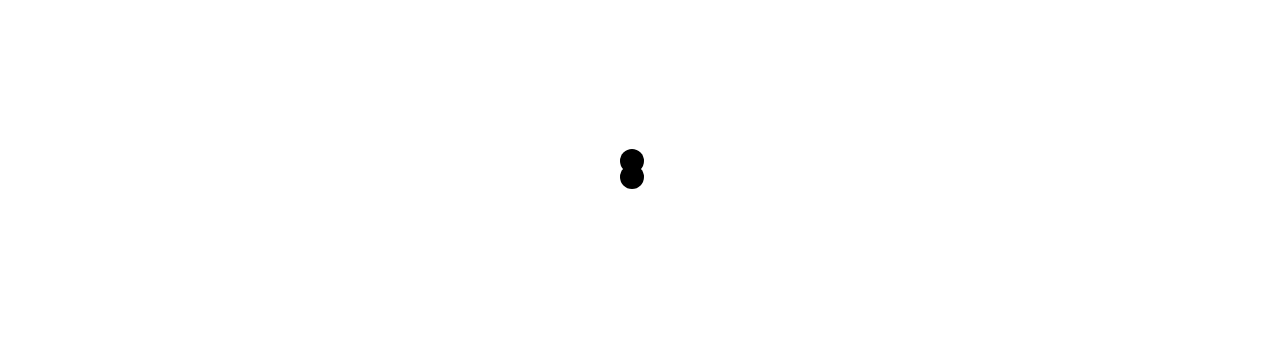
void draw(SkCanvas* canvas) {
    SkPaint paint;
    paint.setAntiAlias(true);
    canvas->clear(SK_ColorWHITE);
    paint.setColor(SK_ColorBLACK);
    canvas->drawCircle(632, 161, 12, paint);
    canvas->drawCircle(632, 177, 12, paint);
}
